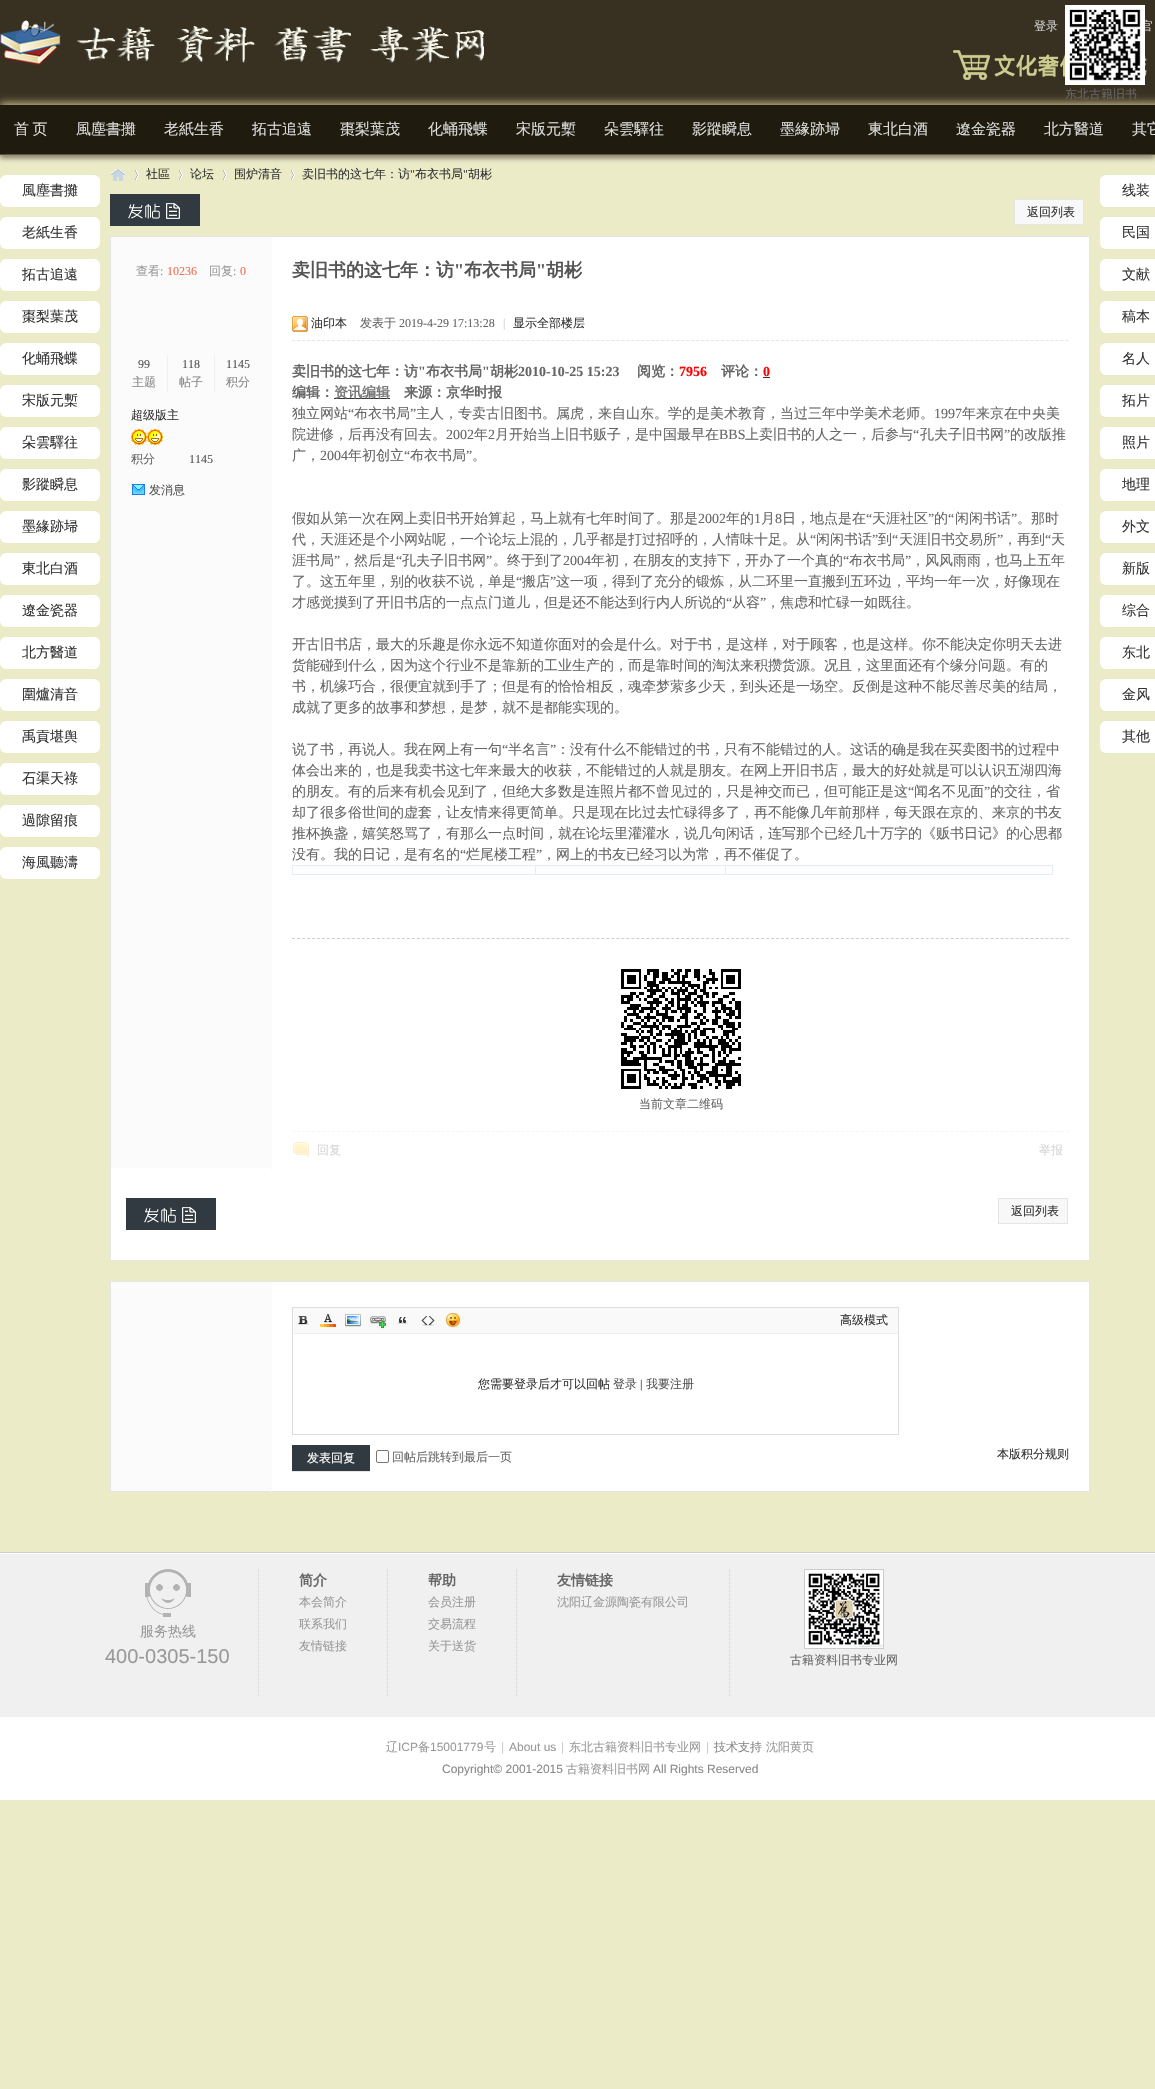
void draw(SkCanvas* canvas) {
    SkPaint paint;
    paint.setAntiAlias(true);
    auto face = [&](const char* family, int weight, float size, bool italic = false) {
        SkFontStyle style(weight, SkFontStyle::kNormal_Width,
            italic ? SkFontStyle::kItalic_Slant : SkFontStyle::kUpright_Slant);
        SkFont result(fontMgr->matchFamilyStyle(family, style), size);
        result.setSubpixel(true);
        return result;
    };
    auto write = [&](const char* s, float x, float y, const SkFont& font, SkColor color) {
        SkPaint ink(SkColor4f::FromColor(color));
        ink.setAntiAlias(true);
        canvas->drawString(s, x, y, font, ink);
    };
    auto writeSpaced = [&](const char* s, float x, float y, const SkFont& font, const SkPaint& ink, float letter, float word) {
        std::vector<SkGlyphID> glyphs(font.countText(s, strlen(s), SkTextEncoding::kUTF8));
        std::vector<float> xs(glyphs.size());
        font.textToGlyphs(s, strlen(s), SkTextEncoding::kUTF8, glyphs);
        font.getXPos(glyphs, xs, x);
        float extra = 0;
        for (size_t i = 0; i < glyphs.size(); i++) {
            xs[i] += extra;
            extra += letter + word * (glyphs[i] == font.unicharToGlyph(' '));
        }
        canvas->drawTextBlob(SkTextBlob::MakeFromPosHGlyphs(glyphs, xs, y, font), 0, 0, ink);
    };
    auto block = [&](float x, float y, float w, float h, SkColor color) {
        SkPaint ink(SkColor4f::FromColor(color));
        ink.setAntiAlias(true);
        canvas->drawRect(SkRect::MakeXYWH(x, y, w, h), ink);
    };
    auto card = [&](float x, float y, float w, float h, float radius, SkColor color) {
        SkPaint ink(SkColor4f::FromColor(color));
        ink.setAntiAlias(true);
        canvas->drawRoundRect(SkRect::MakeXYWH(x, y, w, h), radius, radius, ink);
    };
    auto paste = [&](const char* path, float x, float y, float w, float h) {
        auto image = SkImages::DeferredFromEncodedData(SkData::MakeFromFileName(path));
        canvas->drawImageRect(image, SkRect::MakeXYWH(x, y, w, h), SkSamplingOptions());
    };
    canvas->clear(SkColorSetRGB(235, 235, 200));
    paint.setColor(SkColorSetARGB(128, 0, 0, 0));
    paint.setMaskFilter(SkMaskFilter::MakeBlur(kNormal_SkBlurStyle, 2.5f));
    canvas->drawRect(SkRect::MakeXYWH(0, 3, 1155, 155), paint);
    paint.setMaskFilter(nullptr);
    block(0, 0, 1155, 155, SkColorSetRGB(56, 49, 33));
    paste("pic1.png", 0, 20, 61, 45);
    paste("pic2.png", 77, 26, 407, 37);
    auto kFont1 = face("WenQuanYi Zen Hei", 500, 12);
    write("登录", 1034, 30, kFont1, SkColorSetRGB(204, 204, 204));
    write("官", 1141, 30, kFont1, SkColorSetRGB(204, 204, 204));
    paste("pic3.png", 953, 50, 194, 30);
    paint.setColor(SkColorSetRGB(204, 188, 138));
    paint.setMaskFilter(SkMaskFilter::MakeBlur(kNormal_SkBlurStyle, 4));
    canvas->drawRect(SkRect::MakeXYWH(0, 103, 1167, 49), paint);
    paint.setMaskFilter(nullptr);
    block(0, 105, 1155, 49, SkColorSetRGB(31, 27, 14));
    auto kFont2 = face("WenQuanYi Zen Hei", 500, 15);
    paint.setColor(SkColorSetRGB(221, 221, 221));
    writeSpaced("首 页", 14, 134, kFont2, paint, 0, -1);
    write("風塵書攤", 76, 134, kFont2, SkColorSetRGB(221, 221, 221));
    write("老紙生香", 164, 134, kFont2, SkColorSetRGB(221, 221, 221));
    write("拓古追遠", 252, 134, kFont2, SkColorSetRGB(221, 221, 221));
    write("棗梨葉茂", 340, 134, kFont2, SkColorSetRGB(221, 221, 221));
    write("化蛹飛蝶", 428, 134, kFont2, SkColorSetRGB(221, 221, 221));
    write("宋版元槧", 516, 134, kFont2, SkColorSetRGB(221, 221, 221));
    write("朵雲驛往", 604, 134, kFont2, SkColorSetRGB(221, 221, 221));
    write("影蹤瞬息", 692, 134, kFont2, SkColorSetRGB(221, 221, 221));
    write("墨緣跡埽", 780, 134, kFont2, SkColorSetRGB(221, 221, 221));
    write("東北白酒", 868, 134, kFont2, SkColorSetRGB(221, 221, 221));
    write("遼金瓷器", 956, 134, kFont2, SkColorSetRGB(221, 221, 221));
    write("北方醫道", 1044, 134, kFont2, SkColorSetRGB(221, 221, 221));
    write("其它", 1132, 134, kFont2, SkColorSetRGB(221, 221, 221));
    paste("pic4.png", 1065, 5, 80, 80);
    write("东北古籍旧书", 1065, 98, kFont1, SkColorSetRGB(102, 102, 102));
    card(0, 175, 100, 32, 6, SK_ColorWHITE);
    auto kFont3 = face("WenQuanYi Zen Hei", 500, 14);
    write("風塵書攤", 22, 195, kFont3, SkColorSetRGB(51, 51, 51));
    card(0, 217, 100, 32, 6, SK_ColorWHITE);
    write("老紙生香", 22, 237, kFont3, SkColorSetRGB(51, 51, 51));
    card(0, 259, 100, 32, 6, SK_ColorWHITE);
    write("拓古追遠", 22, 279, kFont3, SkColorSetRGB(51, 51, 51));
    card(0, 301, 100, 32, 6, SK_ColorWHITE);
    write("棗梨葉茂", 22, 321, kFont3, SkColorSetRGB(51, 51, 51));
    card(0, 343, 100, 32, 6, SK_ColorWHITE);
    write("化蛹飛蝶", 22, 363, kFont3, SkColorSetRGB(51, 51, 51));
    card(0, 385, 100, 32, 6, SK_ColorWHITE);
    write("宋版元槧", 22, 405, kFont3, SkColorSetRGB(51, 51, 51));
    card(0, 427, 100, 32, 6, SK_ColorWHITE);
    write("朵雲驛往", 22, 447, kFont3, SkColorSetRGB(51, 51, 51));
    card(0, 469, 100, 32, 6, SK_ColorWHITE);
    write("影蹤瞬息", 22, 489, kFont3, SkColorSetRGB(51, 51, 51));
    card(0, 511, 100, 32, 6, SK_ColorWHITE);
    write("墨緣跡埽", 22, 531, kFont3, SkColorSetRGB(51, 51, 51));
    card(0, 553, 100, 32, 6, SK_ColorWHITE);
    write("東北白酒", 22, 573, kFont3, SkColorSetRGB(51, 51, 51));
    card(0, 595, 100, 32, 6, SK_ColorWHITE);
    write("遼金瓷器", 22, 615, kFont3, SkColorSetRGB(51, 51, 51));
    card(0, 637, 100, 32, 6, SK_ColorWHITE);
    write("北方醫道", 22, 657, kFont3, SkColorSetRGB(51, 51, 51));
    card(0, 679, 100, 32, 6, SK_ColorWHITE);
    write("圍爐清音", 22, 699, kFont3, SkColorSetRGB(51, 51, 51));
    card(0, 721, 100, 32, 6, SK_ColorWHITE);
    write("禹貢堪舆", 22, 741, kFont3, SkColorSetRGB(51, 51, 51));
    card(0, 763, 100, 32, 6, SK_ColorWHITE);
    write("石渠天祿", 22, 783, kFont3, SkColorSetRGB(51, 51, 51));
    card(0, 805, 100, 32, 6, SK_ColorWHITE);
    write("過隙留痕", 22, 825, kFont3, SkColorSetRGB(51, 51, 51));
    card(0, 847, 100, 32, 6, SK_ColorWHITE);
    write("海風聽濤", 22, 867, kFont3, SkColorSetRGB(51, 51, 51));
    paste("pic5.png", 110, 169, 16, 12);
    paste("pic6.png", 135, 170, 4, 10);
    write("社區", 146, 178, kFont1, SkColorSetRGB(51, 51, 51));
    paste("pic6.png", 179, 170, 4, 10);
    write("论坛", 190, 178, kFont1, SkColorSetRGB(51, 51, 51));
    paste("pic6.png", 223, 170, 4, 10);
    write("围炉清音", 234, 178, kFont1, SkColorSetRGB(51, 51, 51));
    paste("pic6.png", 291, 170, 4, 10);
    write("卖旧书的这七年：访", 302, 178, kFont1, SkColorSetRGB(51, 51, 51));
    auto kFont4 = face("Liberation Serif", 400, 12);
    write("\"", 410, 178, kFont4, SkColorSetRGB(51, 51, 51));
    write("布衣书局", 415, 178, kFont1, SkColorSetRGB(51, 51, 51));
    write("\"", 463, 178, kFont4, SkColorSetRGB(51, 51, 51));
    write("胡彬", 468, 178, kFont1, SkColorSetRGB(51, 51, 51));
    block(110, 194, 90, 32, SkColorSetRGB(48, 58, 64));
    paste("pic7.png", 128, 203, 52, 16);
    paint.setColor(SkColorSetRGB(248, 248, 248));
    canvas->drawRect(SkRect::MakeXYWH(1014.5f, 199.5f, 69, 25), paint);
    paint.setStyle(SkPaint::kStroke_Style);
    paint.setStrokeWidth(1);
    paint.setColor(SkColorSetRGB(229, 229, 229));
    canvas->drawRect(SkRect::MakeXYWH(1014.5f, 199.5f, 69, 25), paint);
    write("返回列表", 1027, 216, kFont1, SkColorSetRGB(51, 51, 51));
    paint.setStyle(SkPaint::kFill_Style);
    paint.setColor(SK_ColorWHITE);
    canvas->drawRect(SkRect::MakeXYWH(110.5f, 236.5f, 979, 1024), paint);
    paint.setStyle(SkPaint::kStroke_Style);
    paint.setColor(SkColorSetRGB(229, 229, 229));
    canvas->drawRect(SkRect::MakeXYWH(110.5f, 236.5f, 979, 1024), paint);
    block(111, 237, 161, 931, SkColorSetRGB(251, 251, 251));
    write("查看", 136, 275, kFont1, SkColorSetRGB(153, 153, 153));
    write(":", 160, 275, kFont4, SkColorSetRGB(153, 153, 153));
    write("10236", 167, 275, kFont4, SkColorSetRGB(242, 108, 79));
    write("回复", 209, 275, kFont1, SkColorSetRGB(153, 153, 153));
    write(":", 233, 275, kFont4, SkColorSetRGB(153, 153, 153));
    write("0", 240, 275, kFont4, SkColorSetRGB(242, 108, 79));
    auto kFont5 = face("WenQuanYi Zen Hei", 700, 18);
    write("卖旧书的这七年：访", 292, 276, kFont5, SkColorSetRGB(85, 85, 85));
    auto kFont6 = face("Liberation Serif", 700, 18);
    write("\"", 454, 276, kFont6, SkColorSetRGB(85, 85, 85));
    write("布衣书局", 464, 276, kFont5, SkColorSetRGB(85, 85, 85));
    write("\"", 536, 276, kFont6, SkColorSetRGB(85, 85, 85));
    write("胡彬", 546, 276, kFont5, SkColorSetRGB(85, 85, 85));
    block(167, 355, 1, 37, SkColorSetRGB(240, 240, 240));
    write("99", 138, 368, kFont4, SkColorSetRGB(85, 85, 85));
    write("主题", 132, 386, kFont1, SkColorSetRGB(136, 136, 136));
    block(214, 355, 1, 37, SkColorSetRGB(240, 240, 240));
    write("118", 182, 368, kFont4, SkColorSetRGB(85, 85, 85));
    write("帖子", 179, 386, kFont1, SkColorSetRGB(136, 136, 136));
    write("1145", 226, 368, kFont4, SkColorSetRGB(85, 85, 85));
    write("积分", 226, 386, kFont1, SkColorSetRGB(136, 136, 136));
    write("超级版主", 131, 419, kFont1, SkColorSetRGB(51, 51, 51));
    paste("pic8.png", 131, 429, 16, 16);
    paste("pic8.png", 147, 429, 16, 16);
    write("积分", 131, 463, kFont1, SkColorSetRGB(102, 102, 102));
    write("1145", 189, 463, kFont4, SkColorSetRGB(85, 85, 85));
    paste("pic9.png", 132, 484, 13, 11);
    write("发消息", 149, 494, kFont1, SkColorSetRGB(85, 85, 85));
    paint.setPathEffect(SkDashPathEffect::Make({{3, 1.99f}}, 0));
    canvas->drawPath(SkPathBuilder().moveTo(292, 340.5f).lineTo(1069, 340.5f).detach(), paint);
    paint.setPathEffect(nullptr);
    paste("pic10.png", 292, 316, 16, 16);
    write("油印本", 311, 327, kFont1, SkColorSetRGB(51, 51, 51));
    write("发表于", 360, 327, kFont1, SkColorSetRGB(102, 102, 102));
    write("2019-4-29 17:13:28", 399, 327, kFont4, SkColorSetRGB(102, 102, 102));
    write("|", 503, 327, kFont4, SkColorSetRGB(204, 204, 204));
    write("显示全部楼层", 513, 327, kFont1, SkColorSetRGB(51, 51, 51));
    auto kFont7 = face("WenQuanYi Zen Hei", 700, 14);
    write("卖旧书的这七年：访", 292, 376, kFont7, SkColorSetRGB(102, 102, 102));
    auto kFont8 = face("Liberation Serif", 700, 14);
    write("\"", 418, 376, kFont8, SkColorSetRGB(102, 102, 102));
    write("布衣书局", 426, 376, kFont7, SkColorSetRGB(102, 102, 102));
    write("\"", 482, 376, kFont8, SkColorSetRGB(102, 102, 102));
    write("胡彬", 490, 376, kFont7, SkColorSetRGB(102, 102, 102));
    write("2010-10-25 15:23", 518, 376, kFont8, SkColorSetRGB(102, 102, 102));
    write("阅览：", 637, 376, kFont7, SkColorSetRGB(102, 102, 102));
    write("7956", 679, 376, kFont8, SkColorSetRGB(255, 0, 0));
    write("评论：", 721, 376, kFont7, SkColorSetRGB(102, 102, 102));
    write("0", 763, 376, kFont8, SkColorSetRGB(255, 0, 0));
    block(763, 377, 7, 1, SkColorSetRGB(51, 51, 51));
    write("编辑：", 292, 397, kFont7, SkColorSetRGB(102, 102, 102));
    block(334, 398, 56, 1, SkColorSetRGB(51, 51, 51));
    write("资讯编辑", 334, 397, kFont7, SkColorSetRGB(119, 119, 119));
    write("来源：京华时报", 404, 397, kFont7, SkColorSetRGB(102, 102, 102));
    write("独立网站", 292, 418, kFont3, SkColorSetRGB(102, 102, 102));
    auto kFont9 = face("Liberation Serif", 400, 14);
    write("“", 348, 418, kFont9, SkColorSetRGB(102, 102, 102));
    write("布衣书局", 354, 418, kFont3, SkColorSetRGB(102, 102, 102));
    write("”", 410, 418, kFont9, SkColorSetRGB(102, 102, 102));
    write("主人，专卖古旧图书。属虎，来自山东。学的是美术教育，当过三年中学美术老师。", 416, 418, kFont3, SkColorSetRGB(102, 102, 102));
    write("1997", 934, 418, kFont9, SkColorSetRGB(102, 102, 102));
    write("年来京在中央美", 962, 418, kFont3, SkColorSetRGB(102, 102, 102));
    write("院进修，后再没有回去。", 292, 439, kFont3, SkColorSetRGB(102, 102, 102));
    write("2002", 446, 439, kFont9, SkColorSetRGB(102, 102, 102));
    write("年", 474, 439, kFont3, SkColorSetRGB(102, 102, 102));
    write("2", 488, 439, kFont9, SkColorSetRGB(102, 102, 102));
    write("月开始当上旧书贩子，是中国最早在", 495, 439, kFont3, SkColorSetRGB(102, 102, 102));
    write("BBS", 719, 439, kFont9, SkColorSetRGB(102, 102, 102));
    write("上卖旧书的人之一，后参与", 745, 439, kFont3, SkColorSetRGB(102, 102, 102));
    write("“", 913, 439, kFont9, SkColorSetRGB(102, 102, 102));
    write("孔夫子旧书网", 920, 439, kFont3, SkColorSetRGB(102, 102, 102));
    write("”", 1004, 439, kFont9, SkColorSetRGB(102, 102, 102));
    write("的改版推", 1010, 439, kFont3, SkColorSetRGB(102, 102, 102));
    write("广，", 292, 460, kFont3, SkColorSetRGB(102, 102, 102));
    write("2004", 320, 460, kFont9, SkColorSetRGB(102, 102, 102));
    write("年初创立", 348, 460, kFont3, SkColorSetRGB(102, 102, 102));
    write("“", 404, 460, kFont9, SkColorSetRGB(102, 102, 102));
    write("布衣书局", 410, 460, kFont3, SkColorSetRGB(102, 102, 102));
    write("”", 466, 460, kFont9, SkColorSetRGB(102, 102, 102));
    write("。", 472, 460, kFont3, SkColorSetRGB(102, 102, 102));
    write("假如从第一次在网上卖旧书开始算起，马上就有七年时间了。那是", 292, 523, kFont3, SkColorSetRGB(102, 102, 102));
    write("2002", 698, 523, kFont9, SkColorSetRGB(102, 102, 102));
    write("年的", 726, 523, kFont3, SkColorSetRGB(102, 102, 102));
    write("1", 754, 523, kFont9, SkColorSetRGB(102, 102, 102));
    write("月", 761, 523, kFont3, SkColorSetRGB(102, 102, 102));
    write("8", 775, 523, kFont9, SkColorSetRGB(102, 102, 102));
    write("日，地点是在", 782, 523, kFont3, SkColorSetRGB(102, 102, 102));
    write("“", 866, 523, kFont9, SkColorSetRGB(102, 102, 102));
    write("天涯社区", 872, 523, kFont3, SkColorSetRGB(102, 102, 102));
    write("”", 928, 523, kFont9, SkColorSetRGB(102, 102, 102));
    write("的", 934, 523, kFont3, SkColorSetRGB(102, 102, 102));
    write("“", 948, 523, kFont9, SkColorSetRGB(102, 102, 102));
    write("闲闲书话", 955, 523, kFont3, SkColorSetRGB(102, 102, 102));
    write("”", 1011, 523, kFont9, SkColorSetRGB(102, 102, 102));
    write("。那时", 1017, 523, kFont3, SkColorSetRGB(102, 102, 102));
    write("代，天涯还是个小网站呢，一个论坛上混的，几乎都是打过招呼的，人情味十足。从", 292, 544, kFont3, SkColorSetRGB(102, 102, 102));
    write("“", 810, 544, kFont9, SkColorSetRGB(102, 102, 102));
    write("闲闲书话", 816, 544, kFont3, SkColorSetRGB(102, 102, 102));
    write("”", 872, 544, kFont9, SkColorSetRGB(102, 102, 102));
    write("到", 878, 544, kFont3, SkColorSetRGB(102, 102, 102));
    write("“", 892, 544, kFont9, SkColorSetRGB(102, 102, 102));
    write("天涯旧书交易所", 899, 544, kFont3, SkColorSetRGB(102, 102, 102));
    write("”", 997, 544, kFont9, SkColorSetRGB(102, 102, 102));
    write("，再到", 1003, 544, kFont3, SkColorSetRGB(102, 102, 102));
    write("“", 1045, 544, kFont9, SkColorSetRGB(102, 102, 102));
    write("天", 1051, 544, kFont3, SkColorSetRGB(102, 102, 102));
    write("涯书局", 292, 565, kFont3, SkColorSetRGB(102, 102, 102));
    write("”", 334, 565, kFont9, SkColorSetRGB(102, 102, 102));
    write("，然后是", 340, 565, kFont3, SkColorSetRGB(102, 102, 102));
    write("“", 396, 565, kFont9, SkColorSetRGB(102, 102, 102));
    write("孔夫子旧书网", 402, 565, kFont3, SkColorSetRGB(102, 102, 102));
    write("”", 486, 565, kFont9, SkColorSetRGB(102, 102, 102));
    write("。终于到了", 493, 565, kFont3, SkColorSetRGB(102, 102, 102));
    write("2004", 563, 565, kFont9, SkColorSetRGB(102, 102, 102));
    write("年初，在朋友的支持下，开办了一个真的", 591, 565, kFont3, SkColorSetRGB(102, 102, 102));
    write("“", 843, 565, kFont9, SkColorSetRGB(102, 102, 102));
    write("布衣书局", 849, 565, kFont3, SkColorSetRGB(102, 102, 102));
    write("”", 905, 565, kFont9, SkColorSetRGB(102, 102, 102));
    write("，风风雨雨，也马上五年", 911, 565, kFont3, SkColorSetRGB(102, 102, 102));
    write("了。这五年里，别的收获不说，单是", 292, 586, kFont3, SkColorSetRGB(102, 102, 102));
    write("“", 516, 586, kFont9, SkColorSetRGB(102, 102, 102));
    write("搬店", 522, 586, kFont3, SkColorSetRGB(102, 102, 102));
    write("”", 550, 586, kFont9, SkColorSetRGB(102, 102, 102));
    write("这一项，得到了充分的锻炼，从二环里一直搬到五环边，平均一年一次，好像现在", 556, 586, kFont3, SkColorSetRGB(102, 102, 102));
    write("才感觉摸到了开旧书店的一点点门道儿，但是还不能达到行内人所说的", 292, 607, kFont3, SkColorSetRGB(102, 102, 102));
    write("“", 726, 607, kFont9, SkColorSetRGB(102, 102, 102));
    write("从容", 732, 607, kFont3, SkColorSetRGB(102, 102, 102));
    write("”", 760, 607, kFont9, SkColorSetRGB(102, 102, 102));
    write("，焦虑和忙碌一如既往。", 766, 607, kFont3, SkColorSetRGB(102, 102, 102));
    write("开古旧书店，最大的乐趣是你永远不知道你面对的会是什么。对于书，是这样，对于顾客，也是这样。你不能决定你明天去进", 292, 649, kFont3, SkColorSetRGB(102, 102, 102));
    write("货能碰到什么，因为这个行业不是靠新的工业生产的，而是靠时间的淘汰来积攒货源。况且，这里面还有个缘分问题。有的", 292, 670, kFont3, SkColorSetRGB(102, 102, 102));
    write("书，机缘巧合，很便宜就到手了；但是有的恰恰相反，魂牵梦萦多少天，到头还是一场空。反倒是这种不能尽善尽美的结局，", 292, 691, kFont3, SkColorSetRGB(102, 102, 102));
    write("成就了更多的故事和梦想，是梦，就不是都能实现的。", 292, 712, kFont3, SkColorSetRGB(102, 102, 102));
    write("说了书，再说人。我在网上有一句", 292, 754, kFont3, SkColorSetRGB(102, 102, 102));
    write("“", 502, 754, kFont9, SkColorSetRGB(102, 102, 102));
    write("半名言", 508, 754, kFont3, SkColorSetRGB(102, 102, 102));
    write("”", 550, 754, kFont9, SkColorSetRGB(102, 102, 102));
    write("：没有什么不能错过的书，只有不能错过的人。这话的确是我在买卖图书的过程中", 556, 754, kFont3, SkColorSetRGB(102, 102, 102));
    write("体会出来的，也是我卖书这七年来最大的收获，不能错过的人就是朋友。在网上开旧书店，最大的好处就是可以认识五湖四海", 292, 775, kFont3, SkColorSetRGB(102, 102, 102));
    write("的朋友。有的后来有机会见到了，但绝大多数是连照片都不曾见过的，只是神交而已，但可能正是这", 292, 796, kFont3, SkColorSetRGB(102, 102, 102));
    write("“", 908, 796, kFont9, SkColorSetRGB(102, 102, 102));
    write("闻名不见面", 914, 796, kFont3, SkColorSetRGB(102, 102, 102));
    write("”", 984, 796, kFont9, SkColorSetRGB(102, 102, 102));
    write("的交往，省", 990, 796, kFont3, SkColorSetRGB(102, 102, 102));
    write("却了很多俗世间的虚套，让友情来得更简单。只是现在比过去忙碌得多了，再不能像几年前那样，每天跟在京的、来京的书友", 292, 817, kFont3, SkColorSetRGB(102, 102, 102));
    write("推杯换盏，嬉笑怒骂了，有那么一点时间，就在论坛里灌灌水，说几句闲话，连写那个已经几十万字的《贩书日记》的心思都", 292, 838, kFont3, SkColorSetRGB(102, 102, 102));
    write("没有。我的日记，是有名的", 292, 859, kFont3, SkColorSetRGB(102, 102, 102));
    write("“", 460, 859, kFont9, SkColorSetRGB(102, 102, 102));
    write("烂尾楼工程", 466, 859, kFont3, SkColorSetRGB(102, 102, 102));
    write("”", 536, 859, kFont9, SkColorSetRGB(102, 102, 102));
    write("，网上的书友已经习以为常，再不催促了。", 542, 859, kFont3, SkColorSetRGB(102, 102, 102));
    block(292, 865, 761, 1, SkColorSetRGB(227, 237, 245));
    block(1052, 865, 1, 10, SkColorSetRGB(227, 237, 245));
    block(292, 874, 761, 1, SkColorSetRGB(227, 237, 245));
    block(292, 865, 1, 10, SkColorSetRGB(227, 237, 245));
    block(535, 865, 1, 10, SkColorSetRGB(227, 237, 245));
    block(725, 865, 1, 10, SkColorSetRGB(227, 237, 245));
    paint.setColor(SkColorSetRGB(205, 205, 205));
    paint.setPathEffect(SkDashPathEffect::Make({{3, 1.99f}}, 0));
    canvas->drawPath(SkPathBuilder().moveTo(292, 938.5f).lineTo(1069, 938.5f).detach(), paint);
    paint.setPathEffect(nullptr);
    paste("pic11.png", 621, 969, 120, 120);
    write("当前文章二维码", 639, 1108, kFont1, SkColorSetRGB(102, 102, 102));
    paint.setColor(SkColorSetRGB(245, 245, 245));
    paint.setPathEffect(SkDashPathEffect::Make({{3, 1.99f}}, 0));
    canvas->drawPath(SkPathBuilder().moveTo(292, 1131.5f).lineTo(1069, 1131.5f).detach(), paint);
    paint.setPathEffect(nullptr);
    paste("pic12.png", 293, 1142, 16, 15);
    write("回复", 317, 1154, kFont1, SkColorSetRGB(214, 214, 214));
    write("举报", 1039, 1154, kFont1, SkColorSetRGB(214, 214, 214));
    block(271, 1168, 1, 1, SkColorSetRGB(240, 244, 248));
    block(126, 1198, 90, 32, SkColorSetRGB(48, 58, 64));
    paste("pic7.png", 144, 1207, 52, 16);
    paint.setStyle(SkPaint::kFill_Style);
    paint.setColor(SkColorSetRGB(248, 248, 248));
    canvas->drawRect(SkRect::MakeXYWH(998.5f, 1198.5f, 69, 25), paint);
    paint.setStyle(SkPaint::kStroke_Style);
    paint.setColor(SkColorSetRGB(229, 229, 229));
    canvas->drawRect(SkRect::MakeXYWH(998.5f, 1198.5f, 69, 25), paint);
    write("返回列表", 1011, 1215, kFont1, SkColorSetRGB(51, 51, 51));
    block(272, 1282, 817, 209, SK_ColorWHITE);
    canvas->drawRect(SkRect::MakeXYWH(110.5f, 1281.5f, 979, 210), paint);
    block(271, 1491, 1, 1, SkColorSetRGB(240, 244, 248));
    block(111, 1282, 161, 209, SkColorSetRGB(251, 251, 251));
    paint.setColor(SkColorSetRGB(221, 221, 221));
    canvas->drawRect(SkRect::MakeXYWH(292.5f, 1307.5f, 606, 127), paint);
    block(293, 1308, 605, 25, SkColorSetRGB(249, 249, 249));
    block(293, 1333, 605, 1, SkColorSetRGB(238, 238, 238));
    paste("pic13.png", 297, 1316, 12, 9);
    paste("pic14.png", 320, 1314, 16, 14);
    paste("pic15.png", 345, 1314, 17, 13);
    paste("pic16.png", 370, 1316, 18, 14);
    paste("pic17.png", 397, 1317, 11, 7);
    paste("pic18.png", 421, 1316, 14, 10);
    paste("pic19.png", 444, 1313, 17, 15);
    write("高级模式", 840, 1324, kFont1, SkColorSetRGB(51, 51, 51));
    write("您需要登录后才可以回帖", 478, 1388, kFont1, SkColorSetRGB(51, 51, 51));
    write("登录", 613, 1388, kFont1, SkColorSetRGB(85, 85, 85));
    write("|", 640, 1388, kFont4, SkColorSetRGB(51, 51, 51));
    write("我要注册", 646, 1388, kFont1, SkColorSetRGB(85, 85, 85));
    block(292, 1471, 78, 1, SkColorSetRGB(229, 229, 229));
    block(292, 1445, 78, 26, SkColorSetRGB(48, 58, 64));
    write("发表回复", 307, 1462, kFont1, SK_ColorWHITE);
    paint.setColor(SkColorSetRGB(118, 118, 118));
    canvas->drawRoundRect(SkRect::MakeXYWH(376.5f, 1450.5f, 12, 12), 1.5f, 1.5f, paint);
    write("回帖后跳转到最后一页", 392, 1461, kFont1, SkColorSetRGB(102, 102, 102));
    write("本版积分规则", 997, 1458, kFont1, SkColorSetRGB(51, 51, 51));
    card(1100, 175, 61, 32, 6, SK_ColorWHITE);
    write("线装", 1122, 195, kFont3, SkColorSetRGB(51, 51, 51));
    card(1100, 217, 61, 32, 6, SK_ColorWHITE);
    write("民国", 1122, 237, kFont3, SkColorSetRGB(51, 51, 51));
    card(1100, 259, 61, 32, 6, SK_ColorWHITE);
    write("文献", 1122, 279, kFont3, SkColorSetRGB(51, 51, 51));
    card(1100, 301, 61, 32, 6, SK_ColorWHITE);
    write("稿本", 1122, 321, kFont3, SkColorSetRGB(51, 51, 51));
    card(1100, 343, 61, 32, 6, SK_ColorWHITE);
    write("名人", 1122, 363, kFont3, SkColorSetRGB(51, 51, 51));
    card(1100, 385, 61, 32, 6, SK_ColorWHITE);
    write("拓片", 1122, 405, kFont3, SkColorSetRGB(51, 51, 51));
    card(1100, 427, 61, 32, 6, SK_ColorWHITE);
    write("照片", 1122, 447, kFont3, SkColorSetRGB(51, 51, 51));
    card(1100, 469, 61, 32, 6, SK_ColorWHITE);
    write("地理", 1122, 489, kFont3, SkColorSetRGB(51, 51, 51));
    card(1100, 511, 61, 32, 6, SK_ColorWHITE);
    write("外文", 1122, 531, kFont3, SkColorSetRGB(51, 51, 51));
    card(1100, 553, 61, 32, 6, SK_ColorWHITE);
    write("新版", 1122, 573, kFont3, SkColorSetRGB(51, 51, 51));
    card(1100, 595, 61, 32, 6, SK_ColorWHITE);
    write("综合", 1122, 615, kFont3, SkColorSetRGB(51, 51, 51));
    card(1100, 637, 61, 32, 6, SK_ColorWHITE);
    write("东北", 1122, 657, kFont3, SkColorSetRGB(51, 51, 51));
    card(1100, 679, 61, 32, 6, SK_ColorWHITE);
    write("金风", 1122, 699, kFont3, SkColorSetRGB(51, 51, 51));
    card(1100, 721, 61, 32, 6, SK_ColorWHITE);
    write("其他", 1122, 741, kFont3, SkColorSetRGB(51, 51, 51));
    block(0, 1554, 1155, 163, SkColorSetRGB(240, 240, 240));
    block(0, 1552, 1155, 1, SkColorSetRGB(204, 204, 204));
    block(0, 1553, 1155, 1, SK_ColorWHITE);
    paste("pic20.png", 145, 1569, 46, 48);
    write("服务热线", 140, 1636, kFont3, SkColorSetRGB(153, 153, 153));
    auto kFont10 = face("Liberation Sans", 400, 20);
    write("400-0305-150", 105, 1663, kFont10, SkColorSetRGB(153, 153, 153));
    paint.setColor(SkColorSetRGB(210, 210, 210));
    paint.setPathEffect(SkDashPathEffect::Make({{1, 1}}, 0));
    canvas->drawPath(SkPathBuilder().moveTo(258.5f, 1569).lineTo(258.5f, 1697).detach(), paint);
    paint.setPathEffect(nullptr);
    write("简介", 299, 1585, kFont7, SkColorSetRGB(102, 102, 102));
    write("本会简介", 299, 1606, kFont1, SkColorSetRGB(153, 153, 153));
    write("联系我们", 299, 1628, kFont1, SkColorSetRGB(153, 153, 153));
    write("友情链接", 299, 1650, kFont1, SkColorSetRGB(153, 153, 153));
    paint.setPathEffect(SkDashPathEffect::Make({{1, 1}}, 0));
    canvas->drawPath(SkPathBuilder().moveTo(387.5f, 1569).lineTo(387.5f, 1697).detach(), paint);
    paint.setPathEffect(nullptr);
    write("帮助", 428, 1585, kFont7, SkColorSetRGB(102, 102, 102));
    write("会员注册", 428, 1606, kFont1, SkColorSetRGB(153, 153, 153));
    write("交易流程", 428, 1628, kFont1, SkColorSetRGB(153, 153, 153));
    write("关于送货", 428, 1650, kFont1, SkColorSetRGB(153, 153, 153));
    paint.setPathEffect(SkDashPathEffect::Make({{1, 1}}, 0));
    canvas->drawPath(SkPathBuilder().moveTo(516.5f, 1569).lineTo(516.5f, 1697).detach(), paint);
    paint.setPathEffect(nullptr);
    write("友情链接", 557, 1585, kFont7, SkColorSetRGB(102, 102, 102));
    write("沈阳辽金源陶瓷有限公司", 557, 1606, kFont1, SkColorSetRGB(153, 153, 153));
    paint.setPathEffect(SkDashPathEffect::Make({{1, 1}}, 0));
    canvas->drawPath(SkPathBuilder().moveTo(729.5f, 1569).lineTo(729.5f, 1697).detach(), paint);
    paint.setPathEffect(nullptr);
    paste("pic21.png", 805, 1570, 78, 78);
    paint.setColor(SkColorSetRGB(204, 204, 204));
    canvas->drawRect(SkRect::MakeXYWH(804.5f, 1569.5f, 79, 79), paint);
    write("古籍资料旧书专业网", 790, 1664, kFont1, SkColorSetRGB(102, 102, 102));
    block(0, 1717, 1155, 83, SK_ColorWHITE);
    write("辽", 386, 1751, kFont1, SkColorSetRGB(153, 153, 153));
    auto kFont11 = face("Liberation Sans", 400, 12);
    write("ICP", 398, 1751, kFont11, SkColorSetRGB(153, 153, 153));
    write("备", 418, 1751, kFont1, SkColorSetRGB(153, 153, 153));
    write("15001779", 430, 1751, kFont11, SkColorSetRGB(153, 153, 153));
    write("号", 484, 1751, kFont1, SkColorSetRGB(153, 153, 153));
    write("|", 501, 1751, kFont11, SkColorSetRGB(204, 204, 204));
    write("About us", 509, 1751, kFont11, SkColorSetRGB(153, 153, 153));
    write("|", 561, 1751, kFont11, SkColorSetRGB(204, 204, 204));
    write("东北古籍资料旧书专业网", 569, 1751, kFont1, SkColorSetRGB(153, 153, 153));
    write("|", 706, 1751, kFont11, SkColorSetRGB(204, 204, 204));
    write("技术支持", 714, 1751, kFont1, SkColorSetRGB(136, 136, 136));
    write("沈阳黄页", 766, 1751, kFont1, SkColorSetRGB(153, 153, 153));
    write("Copyright© 2001-2015", 442, 1773, kFont11, SkColorSetRGB(136, 136, 136));
    write("古籍资料旧书网", 566, 1773, kFont1, SkColorSetRGB(153, 153, 153));
    write("All Rights Reserved", 653, 1773, kFont11, SkColorSetRGB(136, 136, 136));
}
